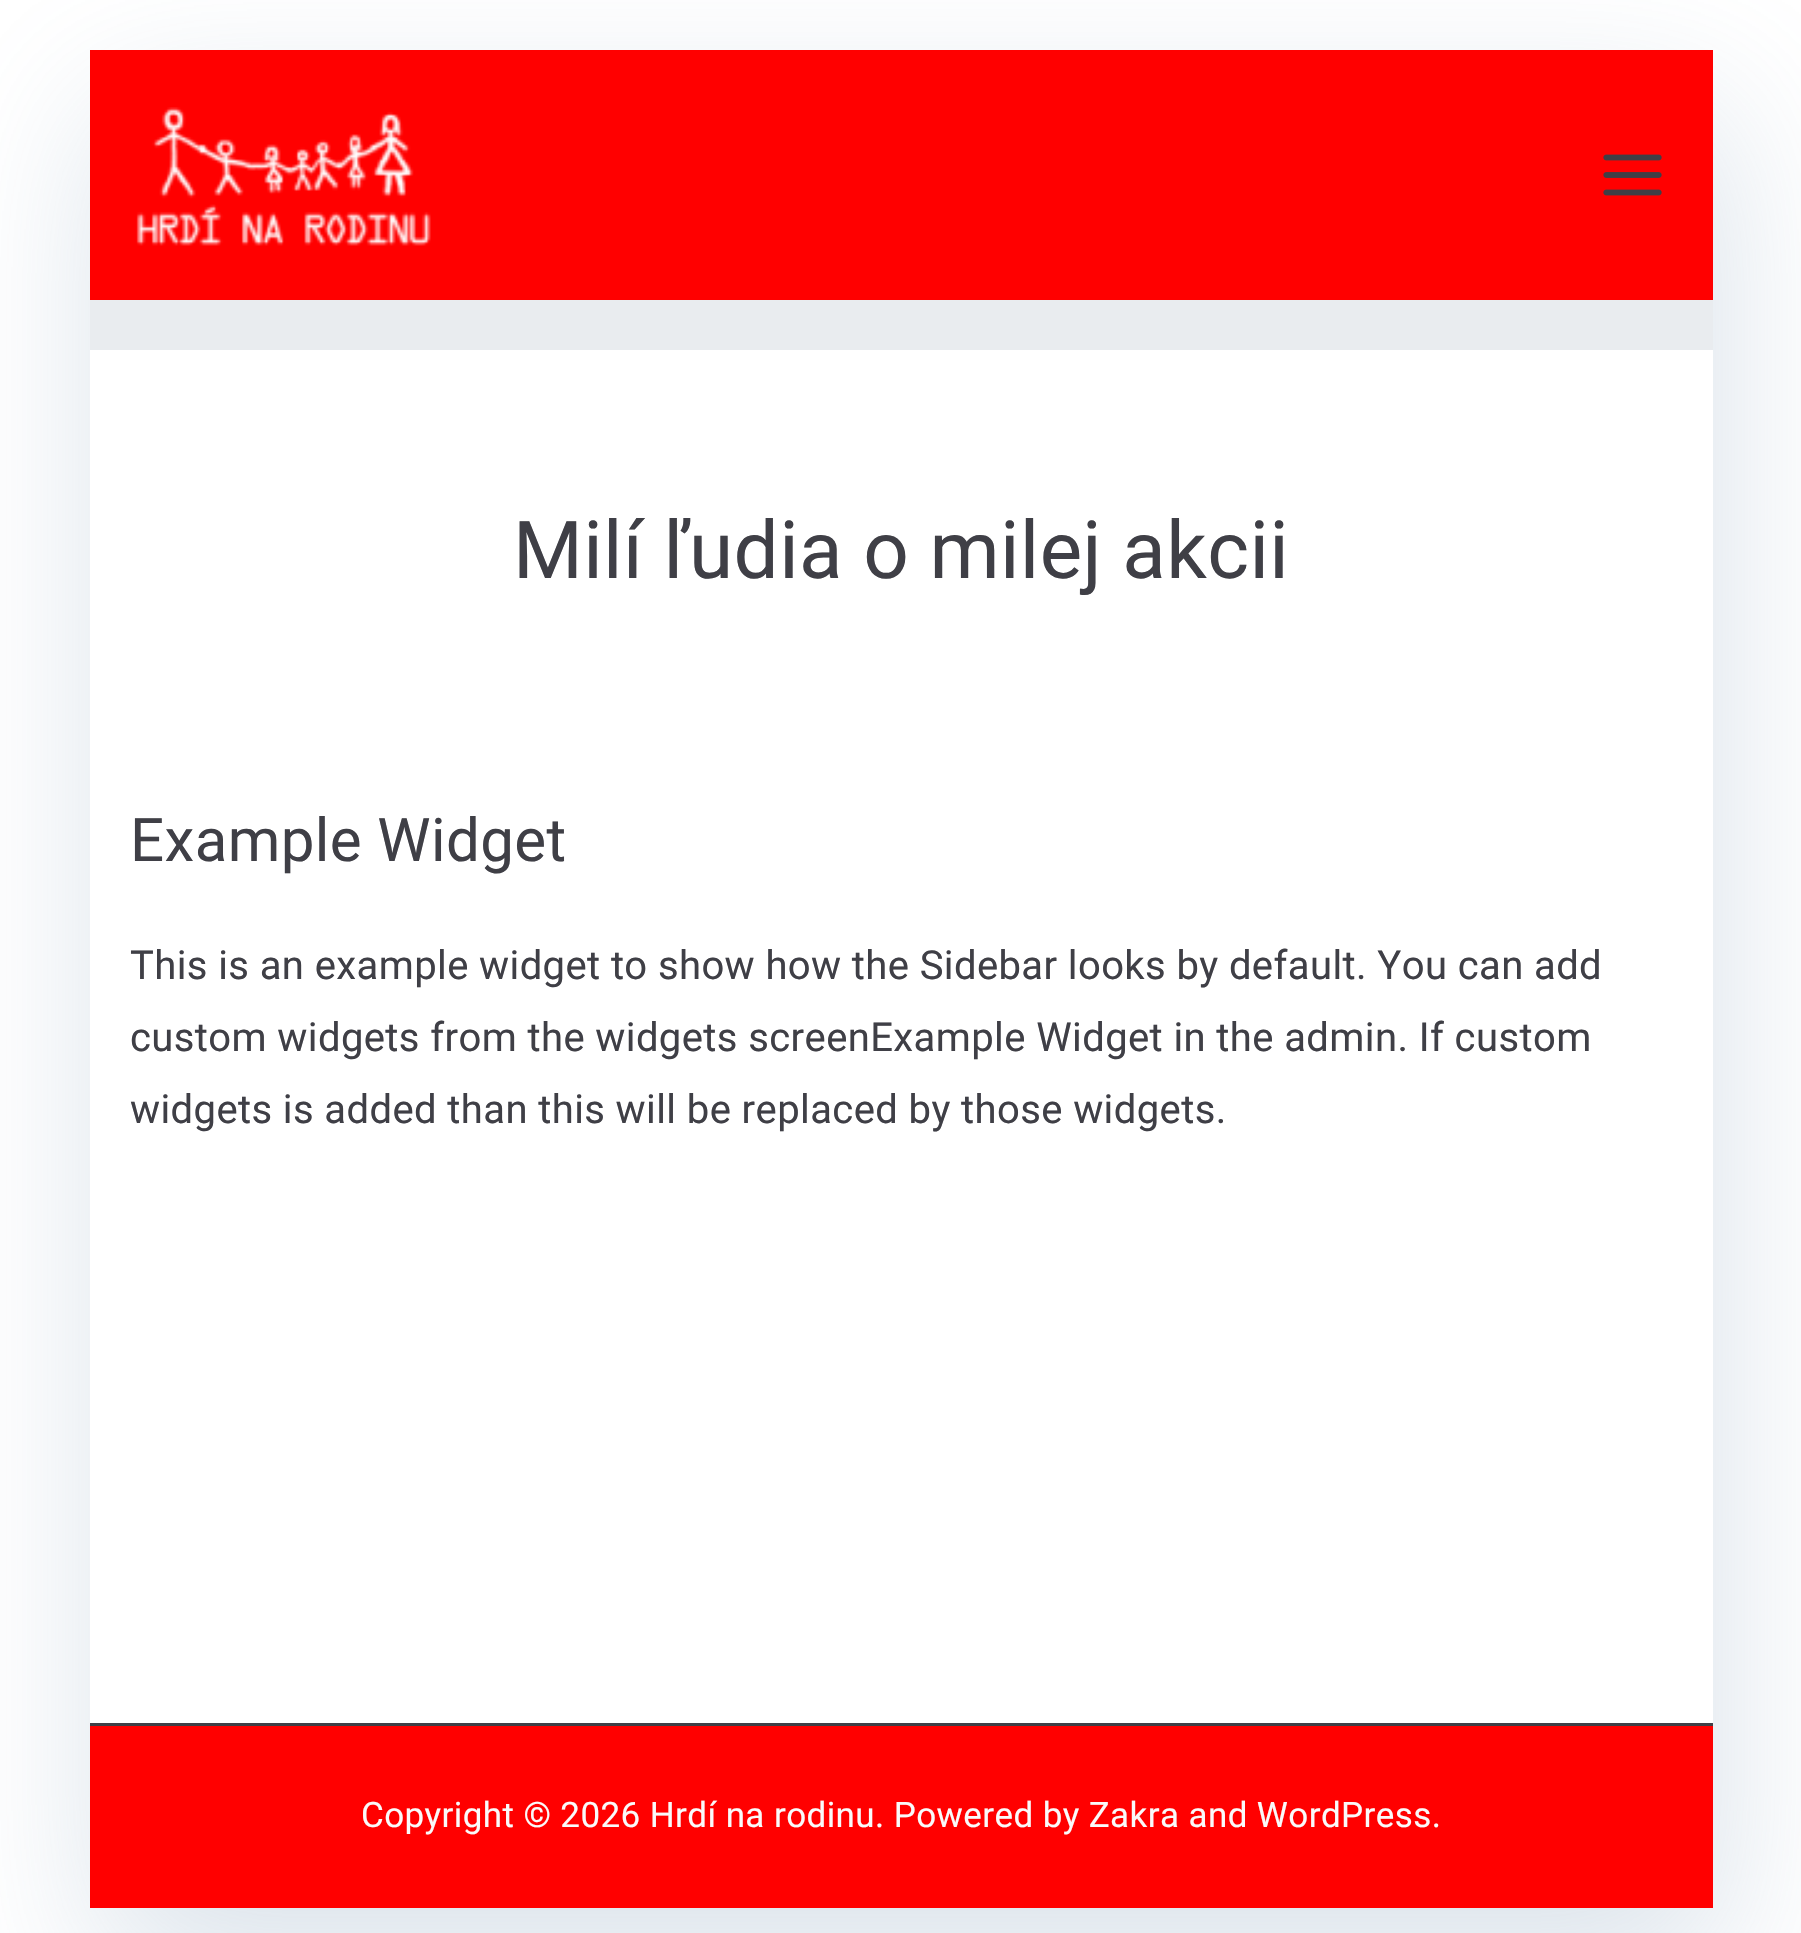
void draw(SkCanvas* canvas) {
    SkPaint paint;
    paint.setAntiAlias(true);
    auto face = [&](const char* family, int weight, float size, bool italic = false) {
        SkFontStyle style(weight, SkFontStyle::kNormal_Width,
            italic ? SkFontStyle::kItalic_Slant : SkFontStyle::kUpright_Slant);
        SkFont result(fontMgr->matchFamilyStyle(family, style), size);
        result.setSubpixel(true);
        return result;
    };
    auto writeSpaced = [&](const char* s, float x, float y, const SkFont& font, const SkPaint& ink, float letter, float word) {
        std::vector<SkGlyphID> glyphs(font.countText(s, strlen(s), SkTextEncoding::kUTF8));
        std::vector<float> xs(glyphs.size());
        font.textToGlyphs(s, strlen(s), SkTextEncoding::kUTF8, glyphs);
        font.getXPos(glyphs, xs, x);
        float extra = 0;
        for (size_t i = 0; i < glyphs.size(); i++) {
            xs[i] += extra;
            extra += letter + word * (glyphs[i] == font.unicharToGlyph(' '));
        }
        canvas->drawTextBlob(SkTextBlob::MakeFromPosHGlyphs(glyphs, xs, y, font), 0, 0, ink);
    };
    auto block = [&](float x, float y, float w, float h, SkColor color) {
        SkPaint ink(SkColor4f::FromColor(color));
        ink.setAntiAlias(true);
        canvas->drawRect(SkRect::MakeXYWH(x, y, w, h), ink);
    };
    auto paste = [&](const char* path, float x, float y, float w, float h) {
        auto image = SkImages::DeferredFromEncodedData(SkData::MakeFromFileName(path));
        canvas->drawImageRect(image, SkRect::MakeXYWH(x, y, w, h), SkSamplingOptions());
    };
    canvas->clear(SK_ColorWHITE);
    paint.setColor(SkColorSetARGB(64, 109, 141, 173));
    paint.setMaskFilter(SkMaskFilter::MakeBlur(kNormal_SkBlurStyle, 75));
    canvas->drawRect(SkRect::MakeXYWH(100, 110, 1623, 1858), paint);
    paint.setMaskFilter(nullptr);
    block(90, 300, 1623, 50, SkColorSetRGB(233, 236, 239));
    block(90, 50, 1623, 250, SkColorSetRGB(255, 0, 0));
    paste("pic1.png", 136, 107, 295, 139);
    paste("pic2.png", 1603, 154, 59, 42);
    block(90, 350, 1623, 1373, SK_ColorWHITE);
    auto kFont1 = face("Roboto", 400, 80);
    paint.setColor(SkColorSetRGB(63, 63, 70));
    writeSpaced("Milí ľudia o milej akcii", 513, 578, kFont1, paint, 0.4f, 0);
    auto kFont2 = face("Roboto", 400, 60);
    writeSpaced("Example Widget", 130, 861, kFont2, paint, 0.4f, 0);
    auto kFont3 = face("Roboto", 400, 40);
    writeSpaced("This is an example widget to show how the Sidebar looks by default. You can add", 130, 979, kFont3, paint, 0.4f, 0);
    writeSpaced("custom widgets from the widgets screenExample Widget in the admin. If custom", 130, 1051, kFont3, paint, 0.4f, 0);
    writeSpaced("widgets is added than this will be replaced by those widgets.", 130, 1123, kFont3, paint, 0.4f, 0);
    block(90, 1726, 1623, 182, SkColorSetRGB(255, 0, 0));
    block(90, 1723, 1623, 3, SkColorSetRGB(63, 63, 70));
    auto kFont4 = face("Roboto", 400, 35);
    paint.setColor(SkColorSetRGB(250, 250, 250));
    writeSpaced("Copyright © 2026 Hrdí na rodinu. Powered by Zakra and WordPress.", 361, 1827, kFont4, paint, 0.4f, 0);
}
